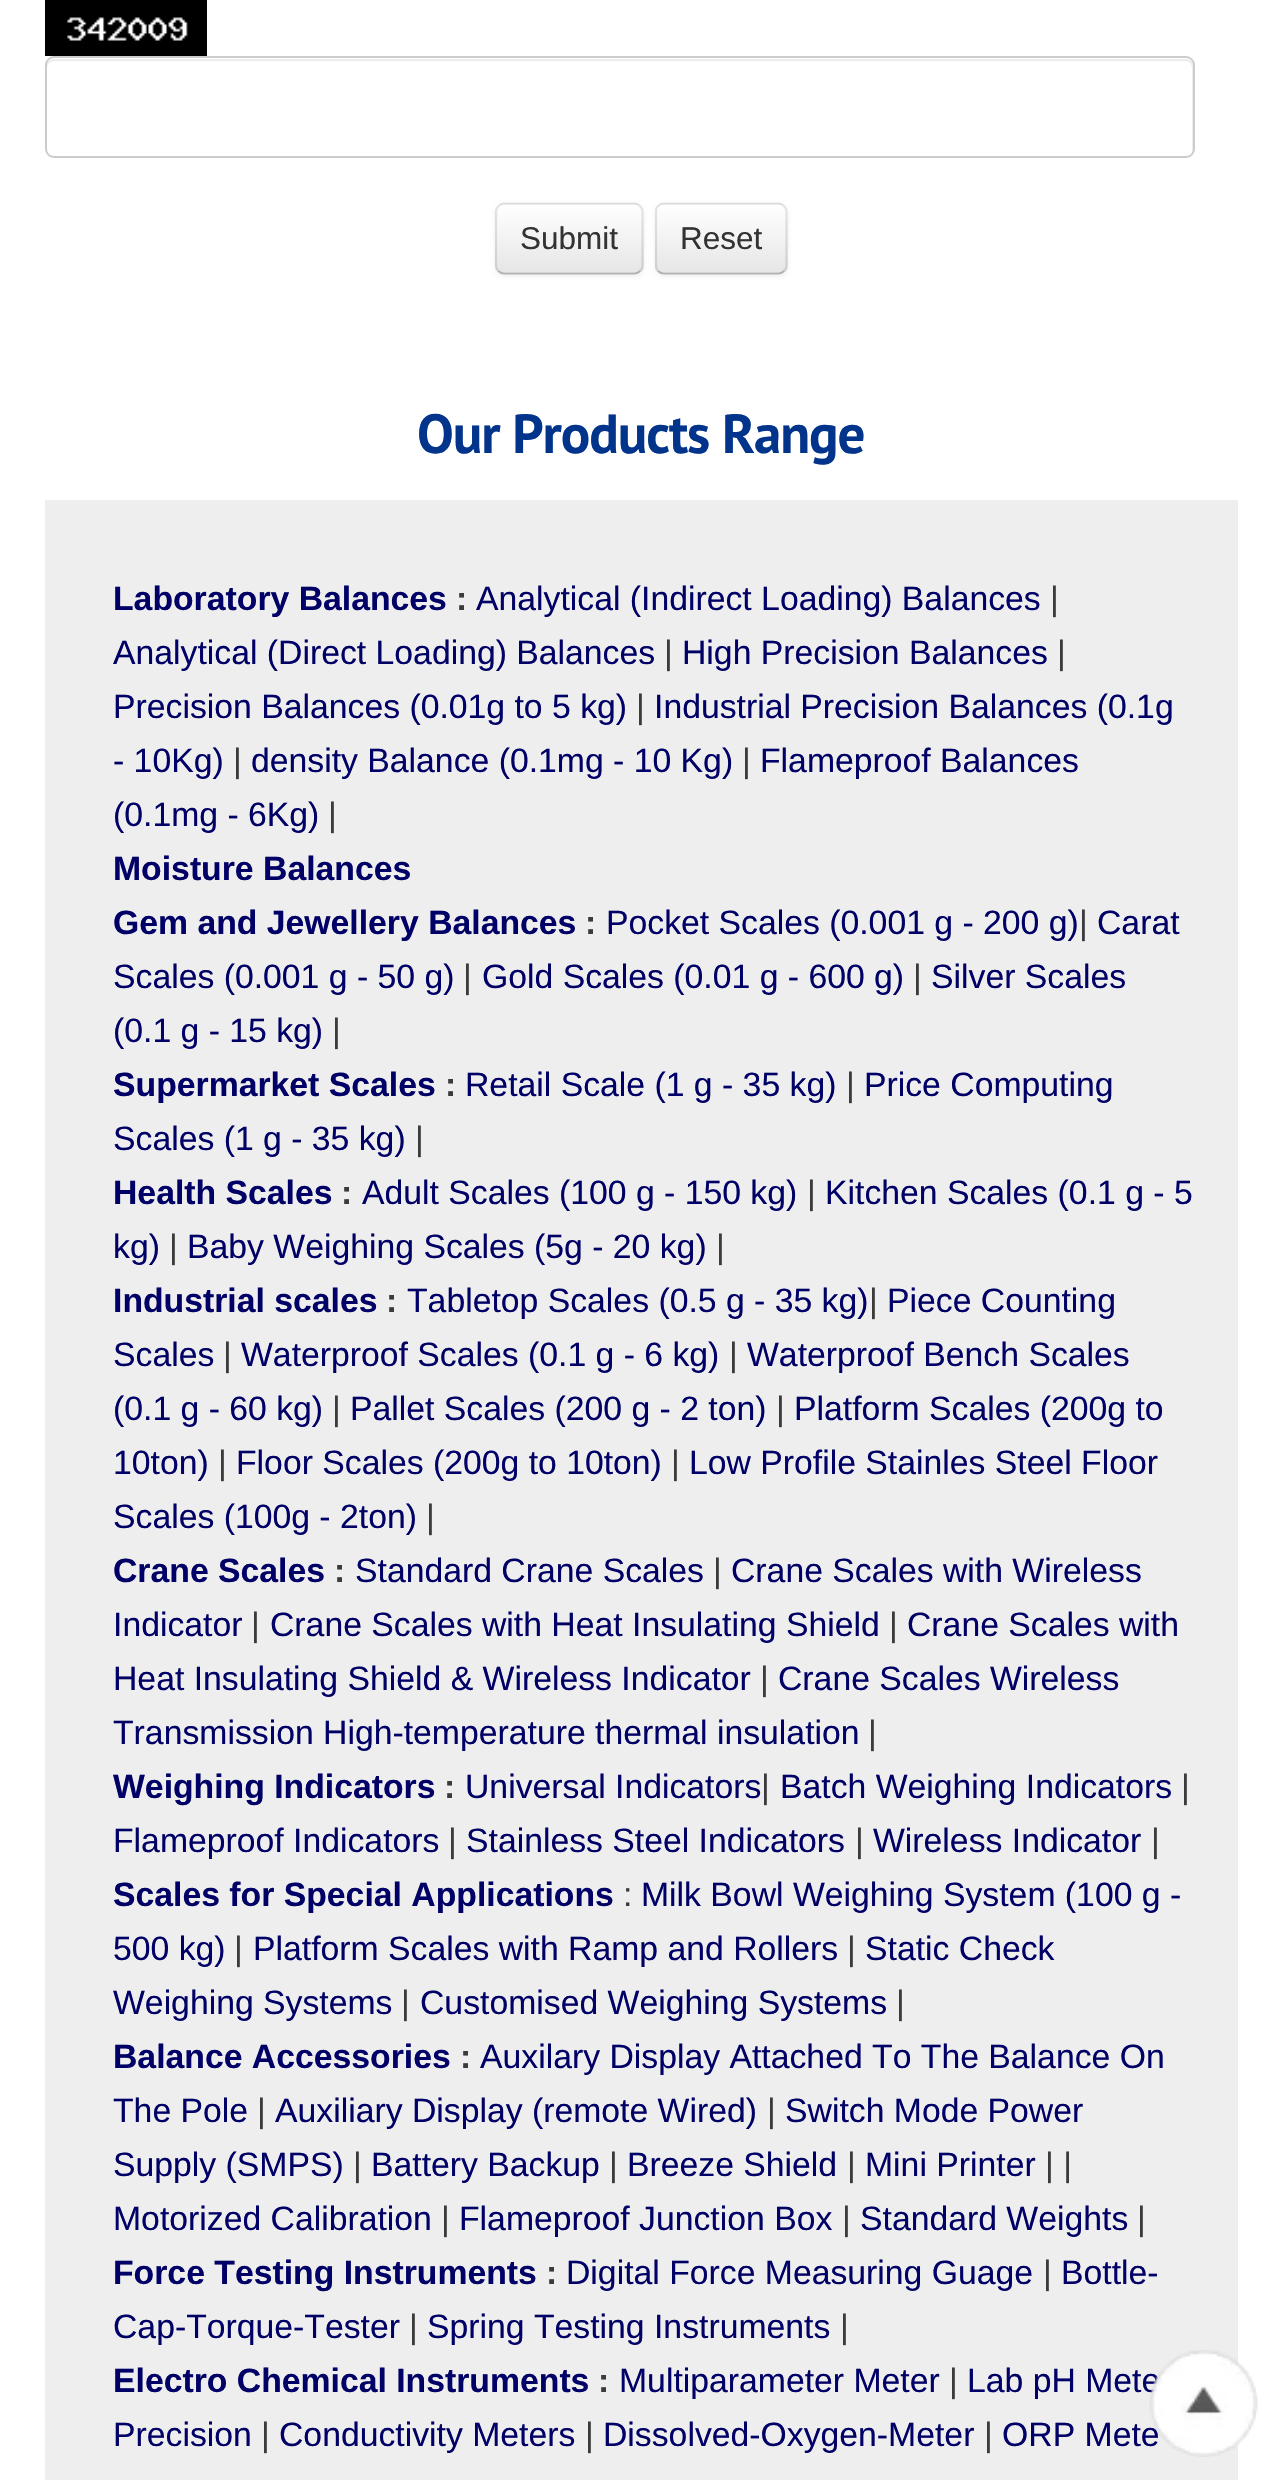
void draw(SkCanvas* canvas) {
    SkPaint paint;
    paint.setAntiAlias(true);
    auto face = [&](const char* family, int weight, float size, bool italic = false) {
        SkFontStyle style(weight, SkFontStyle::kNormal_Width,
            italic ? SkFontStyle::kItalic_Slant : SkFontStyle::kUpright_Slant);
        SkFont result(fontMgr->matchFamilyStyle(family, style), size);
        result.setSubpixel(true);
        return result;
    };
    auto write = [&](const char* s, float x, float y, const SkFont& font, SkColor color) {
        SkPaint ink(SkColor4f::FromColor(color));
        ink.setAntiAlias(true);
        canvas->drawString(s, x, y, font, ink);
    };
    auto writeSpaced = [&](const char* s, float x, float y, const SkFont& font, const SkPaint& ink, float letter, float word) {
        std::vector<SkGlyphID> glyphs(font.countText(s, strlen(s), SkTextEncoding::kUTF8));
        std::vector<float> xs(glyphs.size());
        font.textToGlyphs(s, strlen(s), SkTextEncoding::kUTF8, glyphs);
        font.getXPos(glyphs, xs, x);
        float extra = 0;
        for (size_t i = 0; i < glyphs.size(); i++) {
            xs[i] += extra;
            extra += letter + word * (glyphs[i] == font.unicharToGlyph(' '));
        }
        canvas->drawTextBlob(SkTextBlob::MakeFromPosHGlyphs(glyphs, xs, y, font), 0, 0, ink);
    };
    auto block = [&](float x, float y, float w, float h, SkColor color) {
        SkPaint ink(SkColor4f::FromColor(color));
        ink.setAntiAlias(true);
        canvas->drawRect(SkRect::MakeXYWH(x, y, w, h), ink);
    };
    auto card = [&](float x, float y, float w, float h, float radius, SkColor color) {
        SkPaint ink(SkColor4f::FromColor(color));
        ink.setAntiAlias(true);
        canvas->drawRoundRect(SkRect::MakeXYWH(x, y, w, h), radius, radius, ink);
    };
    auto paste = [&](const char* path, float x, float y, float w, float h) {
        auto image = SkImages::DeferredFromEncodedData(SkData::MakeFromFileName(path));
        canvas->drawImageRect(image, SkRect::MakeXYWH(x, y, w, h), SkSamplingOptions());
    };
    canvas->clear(SK_ColorWHITE);
    paste("pic1.png", 45, 0, 162, 56);
    paint.setColor(SkColorSetRGB(236, 236, 236));
    canvas->drawPath(SkPathBuilder().moveTo(54, 61).lineTo(1186, 61).cubicTo(1189, 61, 1192, 64, 1192, 68).lineTo(1192, 152).cubicTo(1193, 151, 1193, 149, 1193, 148).lineTo(1193, 66).cubicTo(1193, 62, 1190, 59, 1186, 59).lineTo(54, 59).cubicTo(50, 59, 47, 62, 47, 66).lineTo(47, 68).cubicTo(47, 64, 50, 61, 54, 61).close().detach(), paint);
    paint.setStyle(SkPaint::kStroke_Style);
    paint.setStrokeWidth(2);
    paint.setColor(SkColorSetRGB(204, 204, 204));
    canvas->drawRoundRect(SkRect::MakeXYWH(46, 57, 1148, 100), 8, 8, paint);
    paint.setStyle(SkPaint::kFill_Style);
    paint.setColor(SkColorSetARGB(13, 0, 0, 0));
    paint.setMaskFilter(SkMaskFilter::MakeBlur(kNormal_SkBlurStyle, 2));
    canvas->drawRoundRect(SkRect::MakeXYWH(495, 205, 149, 72), 9, 9, paint);
    paint.setMaskFilter(nullptr);
    card(495, 203, 149, 72, 9, SkColorSetRGB(245, 245, 245));
    canvas->save();
    canvas->clipPath(SkPathBuilder().moveTo(504, 203).lineTo(635, 203).cubicTo(640, 203, 644, 207, 644, 212).lineTo(644, 266).cubicTo(644, 271, 640, 275, 635, 275).lineTo(504, 275).cubicTo(499, 275, 495, 271, 495, 266).lineTo(495, 212).cubicTo(495, 207, 499, 203, 504, 203).close().detach(), true);
    {
        const SkColor colors[] = {SK_ColorWHITE, SkColorSetRGB(230, 230, 230)};
        const float stops[] = {0, 1};
        const SkPoint ends[] = {{569, 205}, {569, 272}};
        paint.setShader(SkGradientShader::MakeLinear(ends, colors, stops, 2, SkTileMode::kClamp));
        paint.setAlpha(255);
    }
    canvas->drawRect(SkRect::MakeXYWH(495, 205, 149, 67), paint);
    canvas->restore();
    paint.setStyle(SkPaint::kStroke_Style);
    paint.setStrokeWidth(2.2f);
    paint.setShader(nullptr);
    paint.setColor(SkColorSetRGB(179, 179, 179));
    canvas->drawPath(SkPathBuilder().moveTo(640, 271).cubicTo(638.5f, 272.5f, 636.5f, 273.5f, 634.5f, 273.5f).lineTo(504, 273.5f).cubicTo(502, 273.5f, 500, 272.5f, 498.5f, 271).detach(), paint);
    paint.setColor(SkColorSetARGB(26, 0, 0, 0));
    canvas->drawPath(SkPathBuilder().moveTo(498.5f, 271).cubicTo(497, 269.5f, 496, 267.5f, 496, 265.5f).lineTo(496, 211.5f).cubicTo(496, 209.5f, 497, 207.5f, 498.5f, 206).cubicTo(500, 204.5f, 502, 203.5f, 504, 203.5f).lineTo(634.5f, 203.5f).cubicTo(636.5f, 203.5f, 638.5f, 204.5f, 640, 206).cubicTo(641.5f, 207.5f, 642.5f, 209.5f, 642.5f, 211.5f).lineTo(642.5f, 265.5f).cubicTo(642.5f, 267.5f, 641.5f, 269.5f, 640, 271).detach(), paint);
    auto kFont1 = face("Liberation Sans", 400, 31.5f);
    write("Submit", 520, 249, kFont1, SkColorSetRGB(51, 51, 51));
    paint.setStyle(SkPaint::kFill_Style);
    paint.setColor(SkColorSetARGB(13, 0, 0, 0));
    paint.setMaskFilter(SkMaskFilter::MakeBlur(kNormal_SkBlurStyle, 2));
    canvas->drawRoundRect(SkRect::MakeXYWH(655, 205, 133, 72), 9, 9, paint);
    paint.setMaskFilter(nullptr);
    card(655, 203, 133, 72, 9, SkColorSetRGB(245, 245, 245));
    canvas->save();
    canvas->clipPath(SkPathBuilder().moveTo(664, 203).lineTo(779, 203).cubicTo(784, 203, 788, 207, 788, 212).lineTo(788, 266).cubicTo(788, 271, 784, 275, 779, 275).lineTo(664, 275).cubicTo(659, 275, 655, 271, 655, 266).lineTo(655, 212).cubicTo(655, 207, 659, 203, 664, 203).close().detach(), true);
    {
        const SkColor colors[] = {SK_ColorWHITE, SkColorSetRGB(230, 230, 230)};
        const float stops[] = {0, 1};
        const SkPoint ends[] = {{721, 205}, {721, 272}};
        paint.setShader(SkGradientShader::MakeLinear(ends, colors, stops, 2, SkTileMode::kClamp));
        paint.setAlpha(255);
    }
    canvas->drawRect(SkRect::MakeXYWH(655, 205, 133, 67), paint);
    canvas->restore();
    paint.setStyle(SkPaint::kStroke_Style);
    paint.setShader(nullptr);
    paint.setColor(SkColorSetRGB(179, 179, 179));
    canvas->drawPath(SkPathBuilder().moveTo(784, 271).cubicTo(782.5f, 272.5f, 780.5f, 273.5f, 778.5f, 273.5f).lineTo(664, 273.5f).cubicTo(661.5f, 273.5f, 659.5f, 272.5f, 658, 271).detach(), paint);
    paint.setColor(SkColorSetARGB(26, 0, 0, 0));
    canvas->drawPath(SkPathBuilder().moveTo(658, 271).cubicTo(656.5f, 269.5f, 656, 267.5f, 656, 265.5f).lineTo(656, 211.5f).cubicTo(656, 209.5f, 656.5f, 207.5f, 658, 206).cubicTo(659.5f, 204.5f, 661.5f, 203.5f, 664, 203.5f).lineTo(778.5f, 203.5f).cubicTo(780.5f, 203.5f, 782.5f, 204.5f, 784, 206).cubicTo(785.5f, 207.5f, 786.5f, 209.5f, 786.5f, 211.5f).lineTo(786.5f, 265.5f).cubicTo(786.5f, 267.5f, 785.5f, 269.5f, 784, 271).detach(), paint);
    write("Reset", 680, 249, kFont1, SkColorSetRGB(51, 51, 51));
    auto kFont2 = face("PT Sans", 700, 55);
    paint.setStyle(SkPaint::kFill_Style);
    paint.setColor(SkColorSetRGB(1, 52, 138));
    writeSpaced("Our Products Range", 417, 453, kFont2, paint, -1.1f, 0);
    block(45, 500, 1193, 1980, SkColorSetRGB(238, 238, 238));
    auto kFont3 = face("Liberation Sans", 700, 33.75f);
    write("Laboratory Balances", 113, 610, kFont3, SkColorSetRGB(0, 0, 102));
    write(":", 456, 610, kFont3, SkColorSetRGB(59, 59, 59));
    auto kFont4 = face("Liberation Sans", 400, 33.75f);
    write("Analytical (Indirect Loading) Balances", 476, 610, kFont4, SkColorSetRGB(0, 0, 102));
    write("|", 1050, 610, kFont4, SkColorSetRGB(59, 59, 59));
    write("Analytical (Direct Loading) Balances", 113, 664, kFont4, SkColorSetRGB(0, 0, 102));
    write("|", 664, 664, kFont4, SkColorSetRGB(59, 59, 59));
    write("High Precision Balances", 682, 664, kFont4, SkColorSetRGB(0, 0, 102));
    write("|", 1057, 664, kFont4, SkColorSetRGB(59, 59, 59));
    write("Precision Balances (0.01g to 5 kg)", 113, 718, kFont4, SkColorSetRGB(0, 0, 102));
    write("|", 636, 718, kFont4, SkColorSetRGB(59, 59, 59));
    write("Industrial Precision Balances (0.1g", 654, 718, kFont4, SkColorSetRGB(0, 0, 102));
    write("- 10Kg)", 113, 772, kFont4, SkColorSetRGB(0, 0, 102));
    write("|", 233, 772, kFont4, SkColorSetRGB(59, 59, 59));
    write("density Balance (0.1mg - 10 Kg)", 251, 772, kFont4, SkColorSetRGB(0, 0, 102));
    write("|", 742, 772, kFont4, SkColorSetRGB(59, 59, 59));
    write("Flameproof Balances", 760, 772, kFont4, SkColorSetRGB(0, 0, 102));
    write("(0.1mg - 6Kg)", 113, 826, kFont4, SkColorSetRGB(0, 0, 102));
    write("|", 328, 826, kFont4, SkColorSetRGB(59, 59, 59));
    write("Moisture Balances", 113, 880, kFont3, SkColorSetRGB(0, 0, 102));
    write("Gem and Jewellery Balances", 113, 934, kFont3, SkColorSetRGB(0, 0, 102));
    write(":", 585, 934, kFont3, SkColorSetRGB(59, 59, 59));
    write("Pocket Scales (0.001 g - 200 g)", 606, 934, kFont4, SkColorSetRGB(0, 0, 102));
    write("|", 1079, 934, kFont4, SkColorSetRGB(59, 59, 59));
    write("Carat", 1097, 934, kFont4, SkColorSetRGB(0, 0, 102));
    write("Scales (0.001 g - 50 g)", 113, 988, kFont4, SkColorSetRGB(0, 0, 102));
    write("|", 463, 988, kFont4, SkColorSetRGB(59, 59, 59));
    write("Gold Scales (0.01 g - 600 g)", 482, 988, kFont4, SkColorSetRGB(0, 0, 102));
    write("|", 913, 988, kFont4, SkColorSetRGB(59, 59, 59));
    write("Silver Scales", 931, 988, kFont4, SkColorSetRGB(0, 0, 102));
    write("(0.1 g - 15 kg)", 113, 1042, kFont4, SkColorSetRGB(0, 0, 102));
    write("|", 332, 1042, kFont4, SkColorSetRGB(59, 59, 59));
    write("Supermarket Scales", 113, 1096, kFont3, SkColorSetRGB(0, 0, 102));
    write(":", 445, 1096, kFont3, SkColorSetRGB(59, 59, 59));
    write("Retail Scale (1 g - 35 kg)", 465, 1096, kFont4, SkColorSetRGB(0, 0, 102));
    write("|", 846, 1096, kFont4, SkColorSetRGB(59, 59, 59));
    write("Price Computing", 864, 1096, kFont4, SkColorSetRGB(0, 0, 102));
    write("Scales (1 g - 35 kg)", 113, 1150, kFont4, SkColorSetRGB(0, 0, 102));
    write("|", 415, 1150, kFont4, SkColorSetRGB(59, 59, 59));
    write("Health Scales", 113, 1204, kFont3, SkColorSetRGB(0, 0, 102));
    write(":", 341, 1204, kFont3, SkColorSetRGB(59, 59, 59));
    write("Adult Scales (100 g - 150 kg)", 362, 1204, kFont4, SkColorSetRGB(0, 0, 102));
    write("|", 807, 1204, kFont4, SkColorSetRGB(59, 59, 59));
    write("Kitchen Scales (0.1 g - 5", 825, 1204, kFont4, SkColorSetRGB(0, 0, 102));
    write("kg)", 113, 1258, kFont4, SkColorSetRGB(0, 0, 102));
    write("|", 169, 1258, kFont4, SkColorSetRGB(59, 59, 59));
    write("Baby Weighing Scales (5g - 20 kg)", 187, 1258, kFont4, SkColorSetRGB(0, 0, 102));
    write("|", 716, 1258, kFont4, SkColorSetRGB(59, 59, 59));
    write("Industrial scales", 113, 1312, kFont3, SkColorSetRGB(0, 0, 102));
    write(":", 386, 1312, kFont3, SkColorSetRGB(59, 59, 59));
    write("Tabletop Scales (0.5 g - 35 kg)", 407, 1312, kFont4, SkColorSetRGB(0, 0, 102));
    write("|", 869, 1312, kFont4, SkColorSetRGB(59, 59, 59));
    write("Piece Counting", 887, 1312, kFont4, SkColorSetRGB(0, 0, 102));
    write("Scales", 113, 1366, kFont4, SkColorSetRGB(0, 0, 102));
    write("|", 223, 1366, kFont4, SkColorSetRGB(59, 59, 59));
    write("Waterproof Scales (0.1 g - 6 kg)", 241, 1366, kFont4, SkColorSetRGB(0, 0, 102));
    write("|", 729, 1366, kFont4, SkColorSetRGB(59, 59, 59));
    write("Waterproof Bench Scales", 747, 1366, kFont4, SkColorSetRGB(0, 0, 102));
    write("(0.1 g - 60 kg)", 113, 1420, kFont4, SkColorSetRGB(0, 0, 102));
    write("|", 332, 1420, kFont4, SkColorSetRGB(59, 59, 59));
    write("Pallet Scales (200 g - 2 ton)", 350, 1420, kFont4, SkColorSetRGB(0, 0, 102));
    write("|", 776, 1420, kFont4, SkColorSetRGB(59, 59, 59));
    write("Platform Scales (200g to", 794, 1420, kFont4, SkColorSetRGB(0, 0, 102));
    write("10ton)", 113, 1474, kFont4, SkColorSetRGB(0, 0, 102));
    write("|", 218, 1474, kFont4, SkColorSetRGB(59, 59, 59));
    write("Floor Scales (200g to 10ton)", 236, 1474, kFont4, SkColorSetRGB(0, 0, 102));
    write("|", 671, 1474, kFont4, SkColorSetRGB(59, 59, 59));
    write("Low Profile Stainles Steel Floor", 689, 1474, kFont4, SkColorSetRGB(0, 0, 102));
    write("Scales (100g - 2ton)", 113, 1528, kFont4, SkColorSetRGB(0, 0, 102));
    write("|", 426, 1528, kFont4, SkColorSetRGB(59, 59, 59));
    write("Crane Scales", 113, 1582, kFont3, SkColorSetRGB(0, 0, 102));
    write(":", 334, 1582, kFont3, SkColorSetRGB(59, 59, 59));
    write("Standard Crane Scales", 355, 1582, kFont4, SkColorSetRGB(0, 0, 102));
    write("|", 713, 1582, kFont4, SkColorSetRGB(59, 59, 59));
    write("Crane Scales with Wireless", 731, 1582, kFont4, SkColorSetRGB(0, 0, 102));
    write("Indicator", 113, 1636, kFont4, SkColorSetRGB(0, 0, 102));
    write("|", 251, 1636, kFont4, SkColorSetRGB(59, 59, 59));
    write("Crane Scales with Heat Insulating Shield", 270, 1636, kFont4, SkColorSetRGB(0, 0, 102));
    write("|", 889, 1636, kFont4, SkColorSetRGB(59, 59, 59));
    write("Crane Scales with", 907, 1636, kFont4, SkColorSetRGB(0, 0, 102));
    write("Heat Insulating Shield & Wireless Indicator", 113, 1690, kFont4, SkColorSetRGB(0, 0, 102));
    write("|", 760, 1690, kFont4, SkColorSetRGB(59, 59, 59));
    write("Crane Scales Wireless", 778, 1690, kFont4, SkColorSetRGB(0, 0, 102));
    write("Transmission High-temperature thermal insulation", 113, 1744, kFont4, SkColorSetRGB(0, 0, 102));
    write("|", 868, 1744, kFont4, SkColorSetRGB(59, 59, 59));
    write("Weighing Indicators", 113, 1798, kFont3, SkColorSetRGB(0, 0, 102));
    write(":", 444, 1798, kFont3, SkColorSetRGB(59, 59, 59));
    write("Universal Indicators", 465, 1798, kFont4, SkColorSetRGB(0, 0, 102));
    write("|", 761, 1798, kFont4, SkColorSetRGB(59, 59, 59));
    write("Batch Weighing Indicators", 780, 1798, kFont4, SkColorSetRGB(0, 0, 102));
    write("|", 1181, 1798, kFont4, SkColorSetRGB(59, 59, 59));
    write("Flameproof Indicators", 113, 1852, kFont4, SkColorSetRGB(0, 0, 102));
    write("|", 448, 1852, kFont4, SkColorSetRGB(59, 59, 59));
    write("Stainless Steel Indicators", 466, 1852, kFont4, SkColorSetRGB(0, 0, 102));
    write("|", 855, 1852, kFont4, SkColorSetRGB(59, 59, 59));
    write("Wireless Indicator", 873, 1852, kFont4, SkColorSetRGB(0, 0, 102));
    write("|", 1151, 1852, kFont4, SkColorSetRGB(59, 59, 59));
    write("Scales for Special Applications", 113, 1906, kFont3, SkColorSetRGB(0, 0, 102));
    write(":", 623, 1906, kFont4, SkColorSetRGB(59, 59, 59));
    write("Milk Bowl Weighing System (100 g -", 641, 1906, kFont4, SkColorSetRGB(0, 0, 102));
    write("500 kg)", 113, 1960, kFont4, SkColorSetRGB(0, 0, 102));
    write("|", 234, 1960, kFont4, SkColorSetRGB(59, 59, 59));
    write("Platform Scales with Ramp and Rollers", 253, 1960, kFont4, SkColorSetRGB(0, 0, 102));
    write("|", 847, 1960, kFont4, SkColorSetRGB(59, 59, 59));
    write("Static Check", 865, 1960, kFont4, SkColorSetRGB(0, 0, 102));
    write("Weighing Systems", 113, 2014, kFont4, SkColorSetRGB(0, 0, 102));
    write("|", 401, 2014, kFont4, SkColorSetRGB(59, 59, 59));
    write("Customised Weighing Systems", 420, 2014, kFont4, SkColorSetRGB(0, 0, 102));
    write("|", 896, 2014, kFont4, SkColorSetRGB(59, 59, 59));
    write("Balance Accessories", 113, 2068, kFont3, SkColorSetRGB(0, 0, 102));
    write(":", 460, 2068, kFont3, SkColorSetRGB(59, 59, 59));
    write("Auxilary Display Attached To The Balance On", 480, 2068, kFont4, SkColorSetRGB(0, 0, 102));
    write("The Pole", 113, 2122, kFont4, SkColorSetRGB(0, 0, 102));
    write("|", 257, 2122, kFont4, SkColorSetRGB(59, 59, 59));
    write("Auxiliary Display (remote Wired)", 275, 2122, kFont4, SkColorSetRGB(0, 0, 102));
    write("|", 767, 2122, kFont4, SkColorSetRGB(59, 59, 59));
    write("Switch Mode Power", 785, 2122, kFont4, SkColorSetRGB(0, 0, 102));
    write("Supply (SMPS)", 113, 2176, kFont4, SkColorSetRGB(0, 0, 102));
    write("|", 353, 2176, kFont4, SkColorSetRGB(59, 59, 59));
    write("Battery Backup", 371, 2176, kFont4, SkColorSetRGB(0, 0, 102));
    write("|", 609, 2176, kFont4, SkColorSetRGB(59, 59, 59));
    write("Breeze Shield", 627, 2176, kFont4, SkColorSetRGB(0, 0, 102));
    write("|", 847, 2176, kFont4, SkColorSetRGB(59, 59, 59));
    write("Mini Printer", 865, 2176, kFont4, SkColorSetRGB(0, 0, 102));
    write("| |", 1045, 2176, kFont4, SkColorSetRGB(59, 59, 59));
    write("Motorized Calibration", 113, 2230, kFont4, SkColorSetRGB(0, 0, 102));
    write("|", 441, 2230, kFont4, SkColorSetRGB(59, 59, 59));
    write("Flameproof Junction Box", 459, 2230, kFont4, SkColorSetRGB(0, 0, 102));
    write("|", 842, 2230, kFont4, SkColorSetRGB(59, 59, 59));
    write("Standard Weights", 860, 2230, kFont4, SkColorSetRGB(0, 0, 102));
    write("|", 1137, 2230, kFont4, SkColorSetRGB(59, 59, 59));
    write("Force Testing Instruments", 113, 2284, kFont3, SkColorSetRGB(0, 0, 102));
    write(":", 546, 2284, kFont3, SkColorSetRGB(59, 59, 59));
    write("Digital Force Measuring Guage", 566, 2284, kFont4, SkColorSetRGB(0, 0, 102));
    write("|", 1043, 2284, kFont4, SkColorSetRGB(59, 59, 59));
    write("Bottle-", 1061, 2284, kFont4, SkColorSetRGB(0, 0, 102));
    write("Cap-Torque-Tester", 113, 2338, kFont4, SkColorSetRGB(0, 0, 102));
    write("|", 409, 2338, kFont4, SkColorSetRGB(59, 59, 59));
    write("Spring Testing Instruments", 427, 2338, kFont4, SkColorSetRGB(0, 0, 102));
    write("|", 840, 2338, kFont4, SkColorSetRGB(59, 59, 59));
    write("Electro Chemical Instruments", 113, 2392, kFont3, SkColorSetRGB(0, 0, 102));
    write(":", 598, 2392, kFont3, SkColorSetRGB(59, 59, 59));
    write("Multiparameter Meter", 619, 2392, kFont4, SkColorSetRGB(0, 0, 102));
    write("|", 949, 2392, kFont4, SkColorSetRGB(59, 59, 59));
    write("Lab pH Mete", 967, 2392, kFont4, SkColorSetRGB(0, 0, 102));
    write("Precision", 113, 2446, kFont4, SkColorSetRGB(0, 0, 102));
    write("|", 261, 2446, kFont4, SkColorSetRGB(59, 59, 59));
    write("Conductivity Meters", 279, 2446, kFont4, SkColorSetRGB(0, 0, 102));
    write("|", 585, 2446, kFont4, SkColorSetRGB(59, 59, 59));
    write("Dissolved-Oxygen-Meter", 603, 2446, kFont4, SkColorSetRGB(0, 0, 102));
    write("|", 984, 2446, kFont4, SkColorSetRGB(59, 59, 59));
    write("ORP Mete", 1002, 2446, kFont4, SkColorSetRGB(0, 0, 102));
    paste("pic2.png", 1150, 2350, 108, 107);
    paste("pic3.png", 1149, 2350, 109, 107);
}
